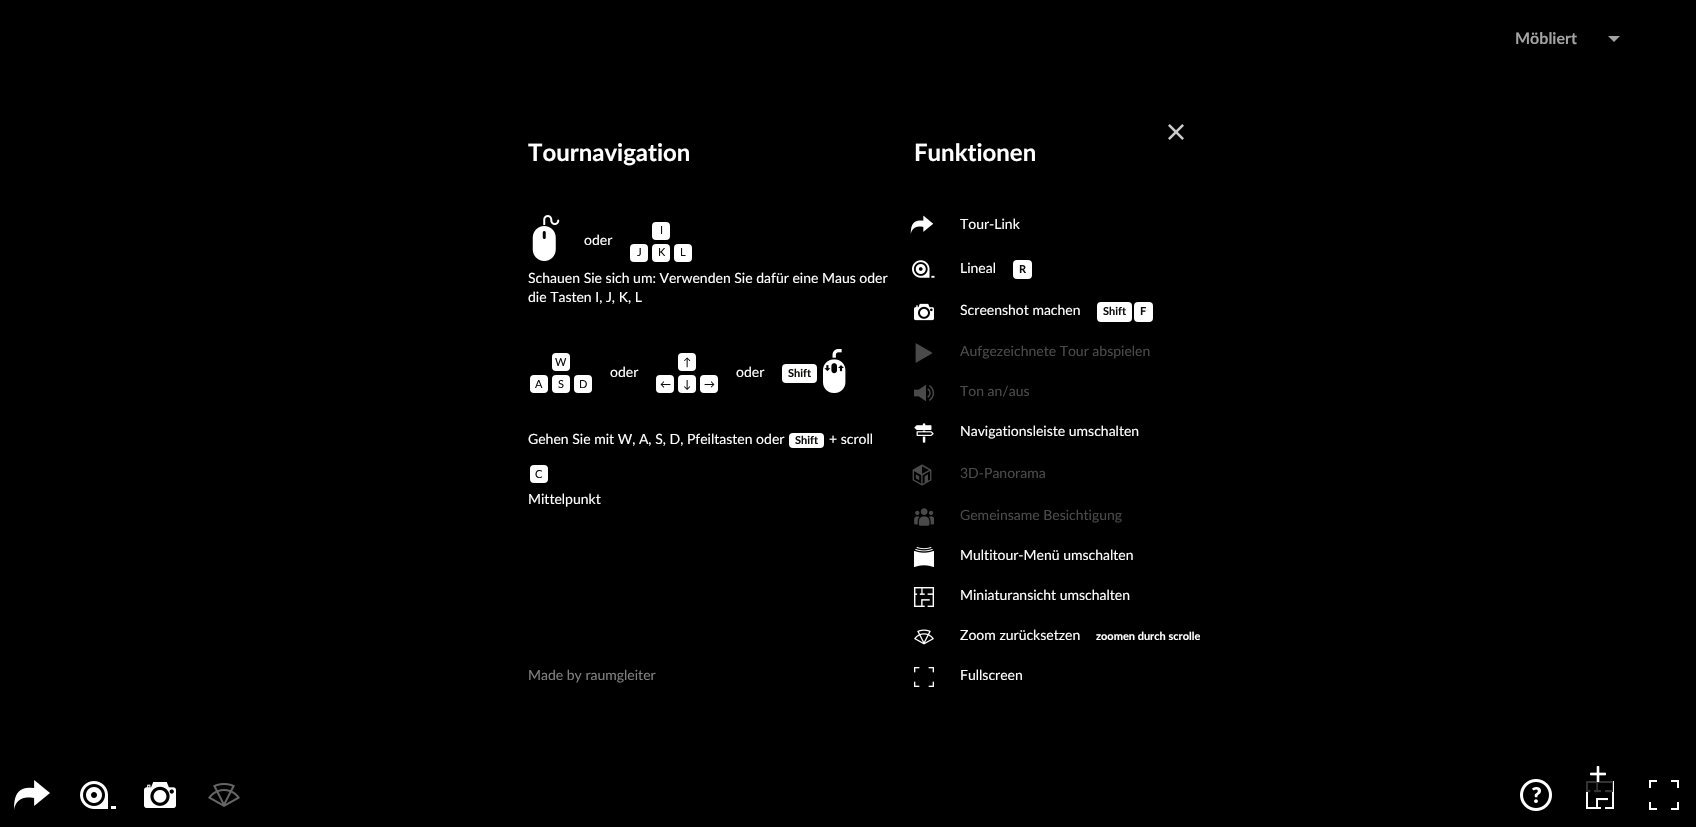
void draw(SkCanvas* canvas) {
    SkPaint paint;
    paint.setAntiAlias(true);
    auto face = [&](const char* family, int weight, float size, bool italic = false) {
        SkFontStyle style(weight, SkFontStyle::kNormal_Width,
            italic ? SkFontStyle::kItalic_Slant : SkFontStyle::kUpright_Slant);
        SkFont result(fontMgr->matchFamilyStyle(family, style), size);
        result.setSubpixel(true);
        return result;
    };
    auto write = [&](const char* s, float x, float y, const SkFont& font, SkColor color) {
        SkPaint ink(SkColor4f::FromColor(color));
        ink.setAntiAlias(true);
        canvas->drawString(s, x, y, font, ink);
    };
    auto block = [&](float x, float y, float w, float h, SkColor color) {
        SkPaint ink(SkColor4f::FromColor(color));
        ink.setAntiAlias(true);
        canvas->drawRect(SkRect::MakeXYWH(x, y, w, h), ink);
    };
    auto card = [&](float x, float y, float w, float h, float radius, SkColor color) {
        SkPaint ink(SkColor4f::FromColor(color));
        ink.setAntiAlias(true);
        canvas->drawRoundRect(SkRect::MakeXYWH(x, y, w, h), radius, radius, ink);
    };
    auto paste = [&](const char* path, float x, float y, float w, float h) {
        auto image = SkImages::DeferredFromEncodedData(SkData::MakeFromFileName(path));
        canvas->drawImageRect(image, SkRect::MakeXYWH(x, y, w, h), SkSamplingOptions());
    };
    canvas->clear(SK_ColorBLACK);
    auto kFont1 = face("Lato", 700, 16);
    write("Möbliert", 1515, 44, kFont1, SkColorSetRGB(163, 163, 163));
    paint.setColor(SkColorSetRGB(163, 163, 163));
    canvas->drawPath(SkPathBuilder().moveTo(1608, 36).lineTo(1620, 36).lineTo(1614, 42).close().detach(), paint);
    paste("pic7.png", 1586, 781, 28, 28);
    block(1586, 781, 27, 11, SkColorSetARGB(204, 0, 0, 0));
    paste("pic1.png", 1590, 766, 16, 16);
    paste("pic2.png", 14, 780, 36, 30);
    paste("pic3.png", 80, 781, 36, 28);
    paste("pic4.png", 144, 782, 32, 26);
    paste("pic5.png", 208, 783, 32, 24);
    paste("pic6.png", 1520, 779, 32, 32);
    paste("pic8.png", 1649, 780, 30, 30);
    paste("pic9.png", 1168, 124, 16, 16);
    auto kFont2 = face("Lato", 700, 24);
    write("Tournavigation", 528, 161, kFont2, SK_ColorWHITE);
    paste("pic10.png", 532, 215, 28, 46);
    auto kFont3 = face("Lato", 400, 14);
    write("oder", 584, 245, kFont3, SK_ColorWHITE);
    card(652, 222, 18, 18, 4, SK_ColorWHITE);
    auto kFont4 = face("Lato", 400, 11);
    write("I", 660, 234, kFont4, SkColorSetRGB(12, 14, 11));
    card(630, 244, 18, 18, 4, SK_ColorWHITE);
    write("J", 637, 256, kFont4, SkColorSetRGB(12, 14, 11));
    card(652, 244, 18, 18, 4, SK_ColorWHITE);
    write("K", 658, 256, kFont4, SkColorSetRGB(12, 14, 11));
    card(674, 244, 18, 18, 4, SK_ColorWHITE);
    write("L", 680, 256, kFont4, SkColorSetRGB(12, 14, 11));
    write("Schauen Sie sich um: Verwenden Sie dafür eine Maus oder", 528, 283, kFont3, SK_ColorWHITE);
    write("die Tasten I, J, K, L", 528, 302, kFont3, SK_ColorWHITE);
    card(552, 353, 18, 18, 4, SK_ColorWHITE);
    write("W", 555, 366, kFont4, SkColorSetRGB(12, 14, 11));
    card(530, 375, 18, 18, 4, SK_ColorWHITE);
    write("A", 535, 388, kFont4, SkColorSetRGB(12, 14, 11));
    card(552, 375, 18, 18, 4, SK_ColorWHITE);
    write("S", 558, 388, kFont4, SkColorSetRGB(12, 14, 11));
    card(574, 375, 18, 18, 4, SK_ColorWHITE);
    write("D", 579, 388, kFont4, SkColorSetRGB(12, 14, 11));
    write("oder", 610, 377, kFont3, SK_ColorWHITE);
    card(678, 353, 18, 18, 4, SK_ColorWHITE);
    write("↑", 683, 366, kFont4, SkColorSetRGB(12, 14, 11));
    card(656, 375, 18, 18, 4, SK_ColorWHITE);
    write("←", 660, 388, kFont4, SkColorSetRGB(12, 14, 11));
    card(678, 375, 18, 18, 4, SK_ColorWHITE);
    write("↓", 683, 388, kFont4, SkColorSetRGB(12, 14, 11));
    card(700, 375, 18, 18, 4, SK_ColorWHITE);
    write("→", 704, 388, kFont4, SkColorSetRGB(12, 14, 11));
    write("oder", 736, 377, kFont3, SK_ColorWHITE);
    card(782, 364, 35, 19, 4, SK_ColorWHITE);
    auto kFont5 = face("Lato", 700, 11);
    write("Shift", 788, 377, kFont5, SkColorSetRGB(12, 14, 11));
    paste("pic11.png", 823, 349, 23, 44);
    write("Gehen Sie mit W, A, S, D, Pfeiltasten oder", 528, 444, kFont3, SK_ColorWHITE);
    card(789, 433, 35, 15, 4, SK_ColorWHITE);
    write("Shift", 795, 444, kFont5, SkColorSetRGB(12, 14, 11));
    write("+ scroll", 829, 444, kFont3, SK_ColorWHITE);
    card(530, 465, 18, 18, 4, SK_ColorWHITE);
    write("C", 535, 478, kFont4, SkColorSetRGB(12, 14, 11));
    write("Mittelpunkt", 528, 504, kFont3, SK_ColorWHITE);
    write("Funktionen", 914, 161, kFont2, SK_ColorWHITE);
    paste("pic12.png", 910, 215, 24, 19);
    write("Tour-Link", 960, 229, kFont3, SK_ColorWHITE);
    paste("pic13.png", 912, 260, 23, 18);
    write("Lineal", 960, 273, kFont3, SK_ColorWHITE);
    card(1013, 260, 19, 19, 4, SK_ColorWHITE);
    write("R", 1019, 273, kFont5, SkColorSetRGB(12, 14, 11));
    paste("pic14.png", 914, 303, 20, 18);
    write("Screenshot machen", 960, 315, kFont3, SK_ColorWHITE);
    card(1097, 302, 35, 20, 4, SK_ColorWHITE);
    write("Shift", 1103, 315, kFont5, SkColorSetRGB(12, 14, 11));
    card(1134, 302, 19, 20, 4, SK_ColorWHITE);
    write("F", 1140, 315, kFont5, SkColorSetRGB(12, 14, 11));
    paste("pic15.png", 915, 343, 18, 20);
    write("Aufgezeichnete Tour abspielen", 960, 356, kFont3, SkColorSetRGB(74, 74, 74));
    paste("pic16.png", 914, 385, 20, 16);
    write("Ton an/aus", 960, 396, kFont3, SkColorSetRGB(74, 74, 74));
    paste("pic17.png", 914, 423, 20, 20);
    write("Navigationsleiste umschalten", 960, 436, kFont3, SK_ColorWHITE);
    paste("pic18.png", 912, 464, 20, 22);
    write("3D-Panorama", 960, 478, kFont3, SkColorSetRGB(74, 74, 74));
    paste("pic19.png", 914, 508, 20, 18);
    write("Gemeinsame Besichtigung", 960, 520, kFont3, SkColorSetRGB(74, 74, 74));
    paste("pic20.png", 914, 547, 20, 20);
    write("Multitour-Menü umschalten", 960, 560, kFont3, SK_ColorWHITE);
    paste("pic21.png", 914, 587, 20, 20);
    write("Miniaturansicht umschalten", 960, 600, kFont3, SK_ColorWHITE);
    paste("pic22.png", 914, 629, 20, 16);
    write("Zoom zurücksetzen", 960, 640, kFont3, SK_ColorWHITE);
    write("zoomen durch scrolle", 1096, 640, kFont5, SK_ColorWHITE);
    paste("pic23.png", 914, 667, 20, 20);
    write("Fullscreen", 960, 680, kFont3, SK_ColorWHITE);
    write("Made by raumgleiter", 528, 680, kFont3, SkColorSetRGB(128, 128, 128));
}
